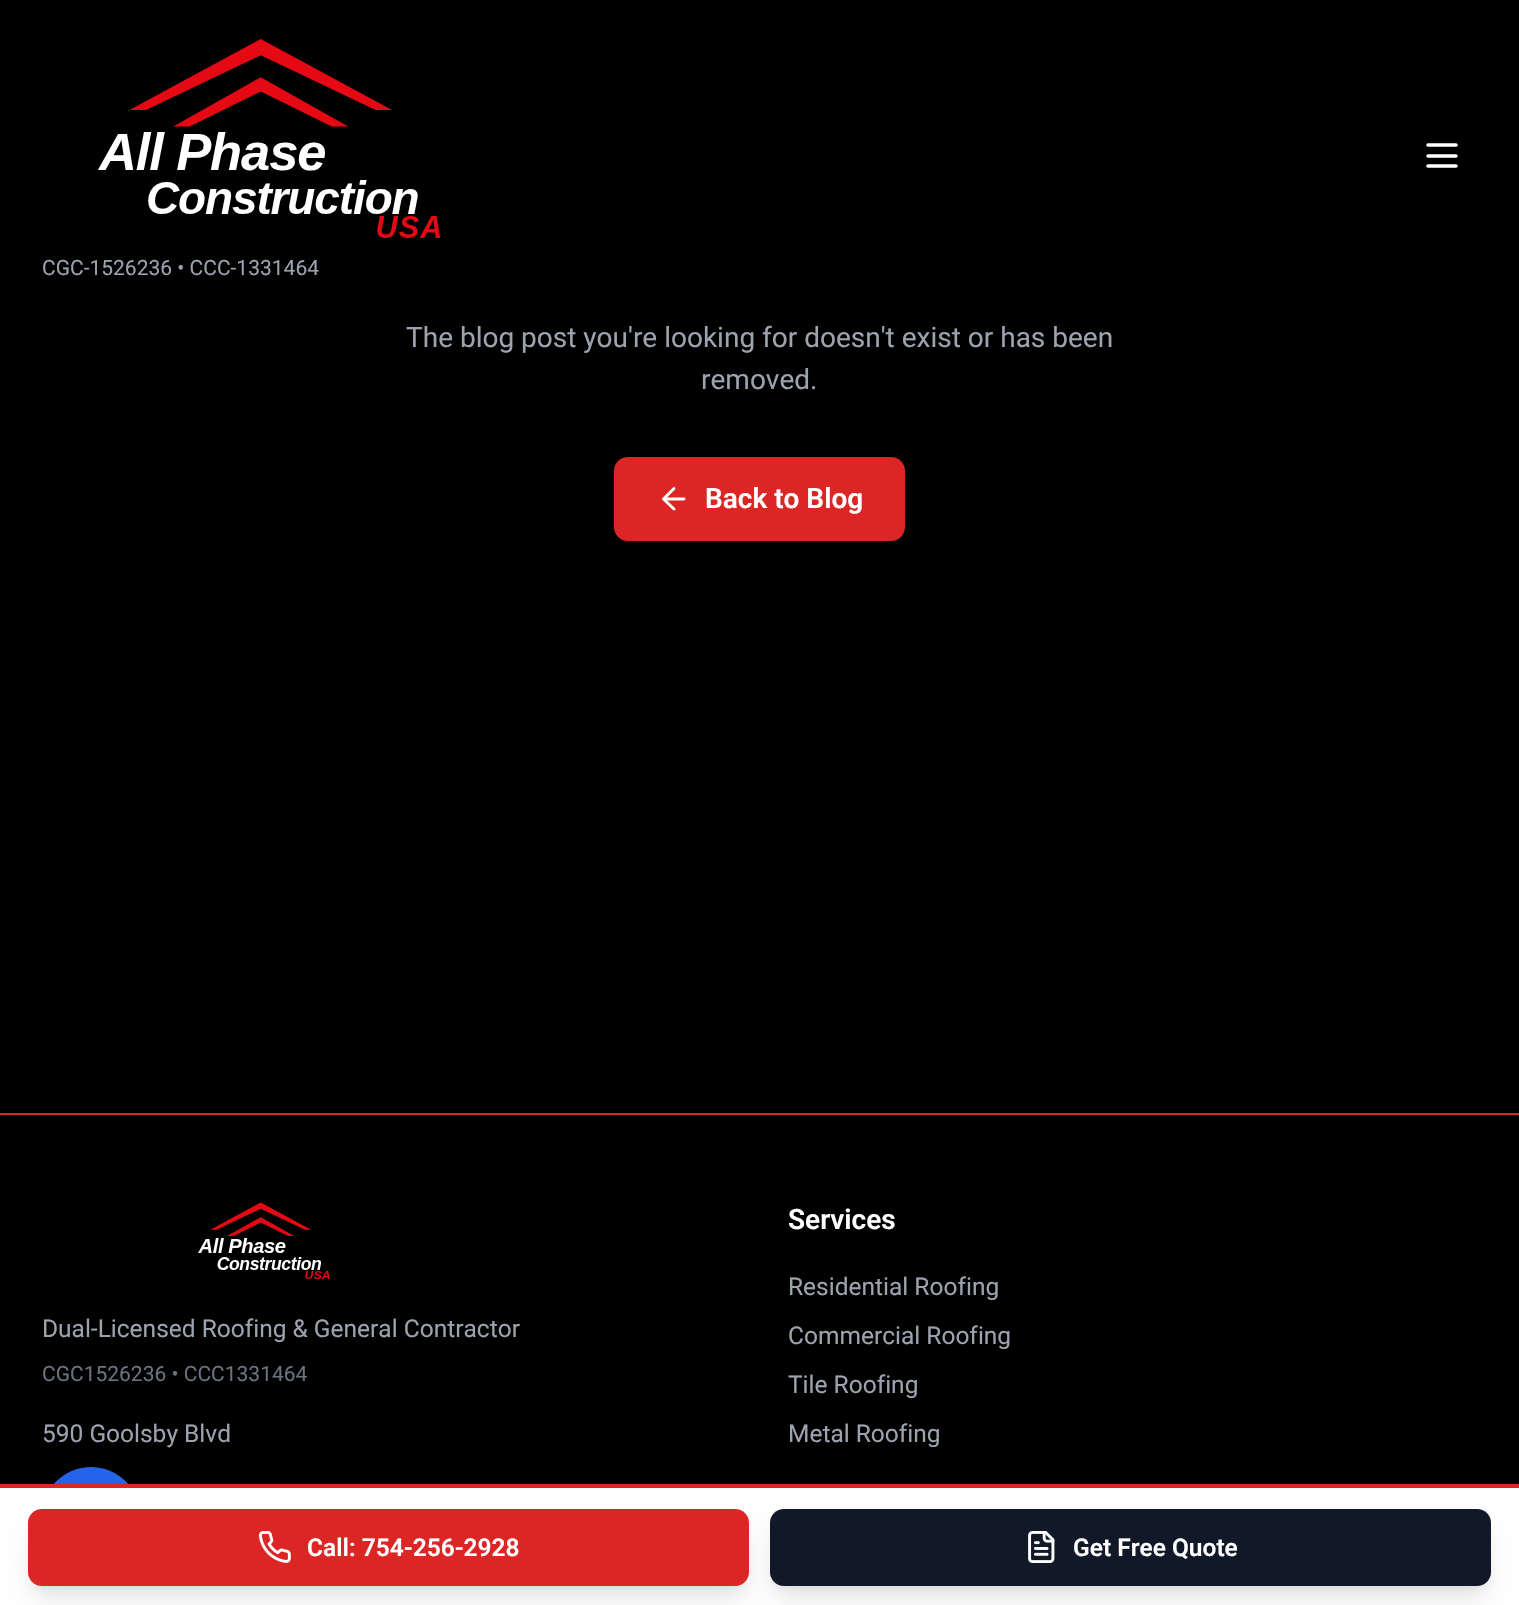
void draw(SkCanvas* canvas) {
    SkPaint paint;
    paint.setAntiAlias(true);
    auto face = [&](const char* family, int weight, float size, bool italic = false) {
        SkFontStyle style(weight, SkFontStyle::kNormal_Width,
            italic ? SkFontStyle::kItalic_Slant : SkFontStyle::kUpright_Slant);
        SkFont result(fontMgr->matchFamilyStyle(family, style), size);
        result.setSubpixel(true);
        return result;
    };
    auto write = [&](const char* s, float x, float y, const SkFont& font, SkColor color) {
        SkPaint ink(SkColor4f::FromColor(color));
        ink.setAntiAlias(true);
        canvas->drawString(s, x, y, font, ink);
    };
    auto block = [&](float x, float y, float w, float h, SkColor color) {
        SkPaint ink(SkColor4f::FromColor(color));
        ink.setAntiAlias(true);
        canvas->drawRect(SkRect::MakeXYWH(x, y, w, h), ink);
    };
    auto card = [&](float x, float y, float w, float h, float radius, SkColor color) {
        SkPaint ink(SkColor4f::FromColor(color));
        ink.setAntiAlias(true);
        canvas->drawRoundRect(SkRect::MakeXYWH(x, y, w, h), radius, radius, ink);
    };
    auto paste = [&](const char* path, float x, float y, float w, float h) {
        auto image = SkImages::DeferredFromEncodedData(SkData::MakeFromFileName(path));
        canvas->drawImageRect(image, SkRect::MakeXYWH(x, y, w, h), SkSamplingOptions());
    };
    canvas->clear(SK_ColorBLACK);
    paint.setStyle(SkPaint::kStroke_Style);
    paint.setStrokeWidth(3.5f);
    paint.setStrokeCap(SkPaint::kRound_Cap);
    paint.setStrokeJoin(SkPaint::kRound_Join);
    paint.setColor(SK_ColorWHITE);
    canvas->drawPath(SkPathBuilder().moveTo(1428, 156).lineTo(1456, 156).moveTo(1428, 145).lineTo(1456, 145).moveTo(1428, 166).lineTo(1456, 166).detach(), paint);
    paste("pic1.png", 98, 39, 343, 199);
    auto kFont1 = face("Roboto", 400, 21);
    write("CGC-1526236 • CCC-1331464", 42, 275, kFont1, SkColorSetRGB(156, 163, 175));
    auto kFont2 = face("Roboto", 400, 28);
    write("The blog post you're looking for doesn't exist or has been", 406, 347, kFont2, SkColorSetRGB(156, 163, 175));
    write("removed.", 701, 389, kFont2, SkColorSetRGB(156, 163, 175));
    card(614, 457, 291, 84, 14, SkColorSetRGB(220, 38, 38));
    paint.setStrokeWidth(2.9f);
    canvas->drawPath(SkPathBuilder().moveTo(674, 509).lineTo(663.5f, 499).lineTo(674, 488.5f).moveTo(684, 499).lineTo(663.5f, 499).detach(), paint);
    auto kFont3 = face("Roboto", 600, 28);
    write("Back to Blog", 705, 508, kFont3, SK_ColorWHITE);
    block(0, 1113, 1519, 2, SkColorSetRGB(220, 38, 38));
    paste("pic2.png", 198, 1202, 132, 77);
    auto kFont4 = face("Roboto", 400, 24.5f);
    write("Dual-Licensed Roofing & General Contractor", 42, 1337, kFont4, SkColorSetRGB(156, 163, 175));
    write("CGC1526236 • CCC1331464", 42, 1381, kFont1, SkColorSetRGB(107, 114, 128));
    write("590 Goolsby Blvd", 42, 1442, kFont4, SkColorSetRGB(156, 163, 175));
    write("Services", 788, 1229, kFont3, SK_ColorWHITE);
    write("Residential Roofing", 788, 1295, kFont4, SkColorSetRGB(156, 163, 175));
    write("Commercial Roofing", 788, 1344, kFont4, SkColorSetRGB(156, 163, 175));
    write("Tile Roofing", 788, 1393, kFont4, SkColorSetRGB(156, 163, 175));
    write("Metal Roofing", 788, 1442, kFont4, SkColorSetRGB(156, 163, 175));
    paint.setStyle(SkPaint::kFill_Style);
    paint.setColor(SkColorSetRGB(37, 99, 235));
    canvas->drawCircle(91, 1516, 49, paint);
    block(0, 1488, 1519, 117, SK_ColorWHITE);
    block(0, 1484, 1519, 4, SkColorSetRGB(220, 38, 38));
    paint.setColor(SkColorSetARGB(26, 0, 0, 0));
    paint.setMaskFilter(SkMaskFilter::MakeBlur(kNormal_SkBlurStyle, 5));
    canvas->drawRoundRect(SkRect::MakeXYWH(35, 1523, 707, 63), 7, 7, paint);
    paint.setMaskFilter(nullptr);
    paint.setMaskFilter(SkMaskFilter::MakeBlur(kNormal_SkBlurStyle, 13));
    canvas->drawRoundRect(SkRect::MakeXYWH(33, 1531, 711, 67), 9, 9, paint);
    paint.setMaskFilter(nullptr);
    card(28, 1509, 721, 77, 14, SkColorSetRGB(220, 38, 38));
    paste("pic3.png", 258, 1531, 33, 32);
    auto kFont5 = face("Roboto", 600, 24.5f);
    write("Call: 754-256-2928", 307, 1556, kFont5, SK_ColorWHITE);
    paint.setMaskFilter(SkMaskFilter::MakeBlur(kNormal_SkBlurStyle, 5));
    canvas->drawRoundRect(SkRect::MakeXYWH(777, 1523, 707, 63), 7, 7, paint);
    paint.setMaskFilter(nullptr);
    paint.setMaskFilter(SkMaskFilter::MakeBlur(kNormal_SkBlurStyle, 13));
    canvas->drawRoundRect(SkRect::MakeXYWH(775, 1531, 711, 67), 9, 9, paint);
    paint.setMaskFilter(nullptr);
    card(770, 1509, 721, 77, 14, SkColorSetRGB(17, 24, 39));
    paste("pic4.png", 1028, 1531, 27, 32);
    write("Get Free Quote", 1073, 1556, kFont5, SK_ColorWHITE);
}
